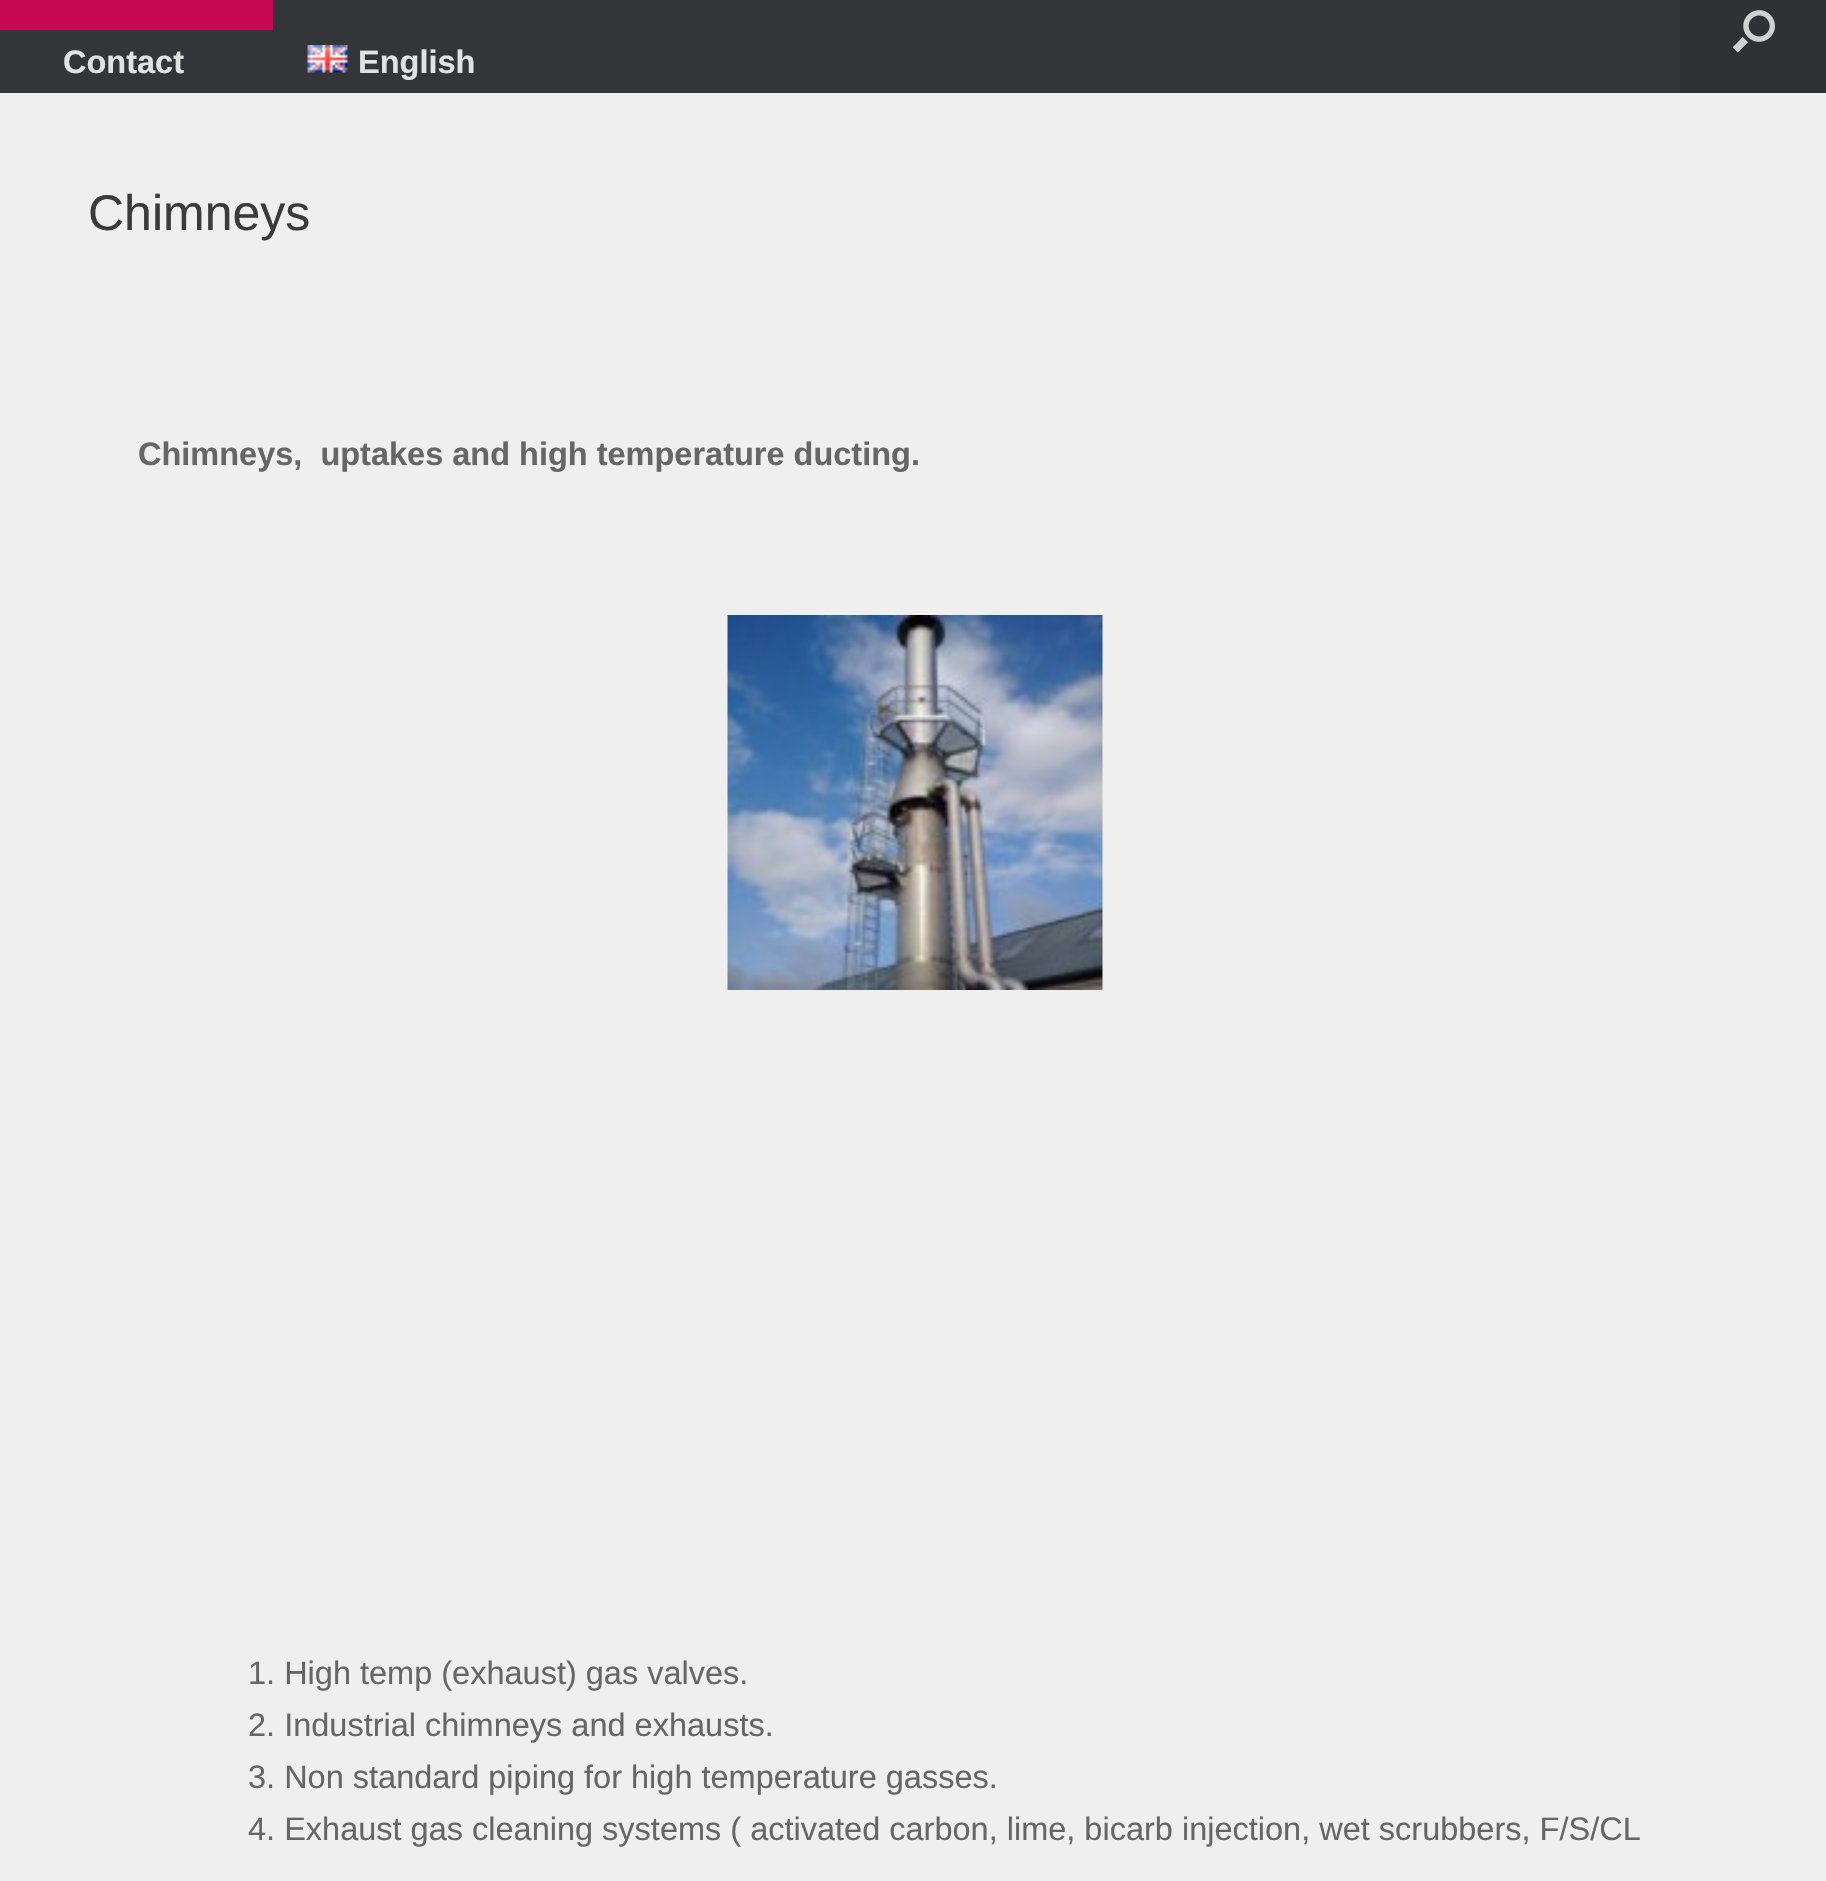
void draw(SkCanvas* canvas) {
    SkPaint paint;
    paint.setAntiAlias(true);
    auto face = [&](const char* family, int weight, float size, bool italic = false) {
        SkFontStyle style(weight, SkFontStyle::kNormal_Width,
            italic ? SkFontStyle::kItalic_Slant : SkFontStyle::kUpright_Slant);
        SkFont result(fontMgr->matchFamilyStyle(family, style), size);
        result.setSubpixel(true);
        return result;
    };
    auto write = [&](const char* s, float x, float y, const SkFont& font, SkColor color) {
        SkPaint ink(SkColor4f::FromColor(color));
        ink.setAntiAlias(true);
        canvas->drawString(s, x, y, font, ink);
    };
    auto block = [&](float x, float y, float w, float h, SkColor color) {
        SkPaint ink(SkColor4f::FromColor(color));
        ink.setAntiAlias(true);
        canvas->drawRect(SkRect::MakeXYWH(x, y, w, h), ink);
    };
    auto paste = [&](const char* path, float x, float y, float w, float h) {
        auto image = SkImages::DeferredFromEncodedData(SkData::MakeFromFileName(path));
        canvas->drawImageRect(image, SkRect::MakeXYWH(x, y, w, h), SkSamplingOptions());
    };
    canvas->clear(SkColorSetRGB(239, 239, 239));
    block(0, 0, 1680, 93, SkColorSetRGB(52, 53, 56));
    block(0, 0, 273, 30, SkColorSetRGB(198, 7, 81));
    auto kFont1 = face("Liberation Sans", 700, 32.5f);
    write("Contact", 63, 73, kFont1, SkColorSetRGB(226, 226, 226));
    paste("pic1.png", 307, 45, 41, 28);
    write("English", 358, 73, kFont1, SkColorSetRGB(226, 226, 226));
    block(1680, 0, 146, 93, SkColorSetRGB(48, 49, 52));
    paste("pic2.png", 1732, 10, 43, 43);
    auto kFont2 = face("Liberation Sans", 400, 50);
    write("Chimneys", 88, 230, kFont2, SkColorSetRGB(59, 59, 59));
    write("Chimneys,  uptakes and high temperature ducting.", 138, 465, kFont1, SkColorSetRGB(102, 102, 102));
    paste("pic3.png", 727, 615, 376, 375);
    auto kFont3 = face("Liberation Sans", 400, 32.5f);
    write("1. High temp (exhaust) gas valves.", 248, 1684, kFont3, SkColorSetRGB(102, 102, 102));
    write("2. Industrial chimneys and exhausts.", 248, 1736, kFont3, SkColorSetRGB(102, 102, 102));
    write("3. Non standard piping for high temperature gasses.", 248, 1788, kFont3, SkColorSetRGB(102, 102, 102));
    write("4. Exhaust gas cleaning systems ( activated carbon, lime, bicarb injection, wet scrubbers, F/S/CL", 248, 1840, kFont3, SkColorSetRGB(102, 102, 102));
}
